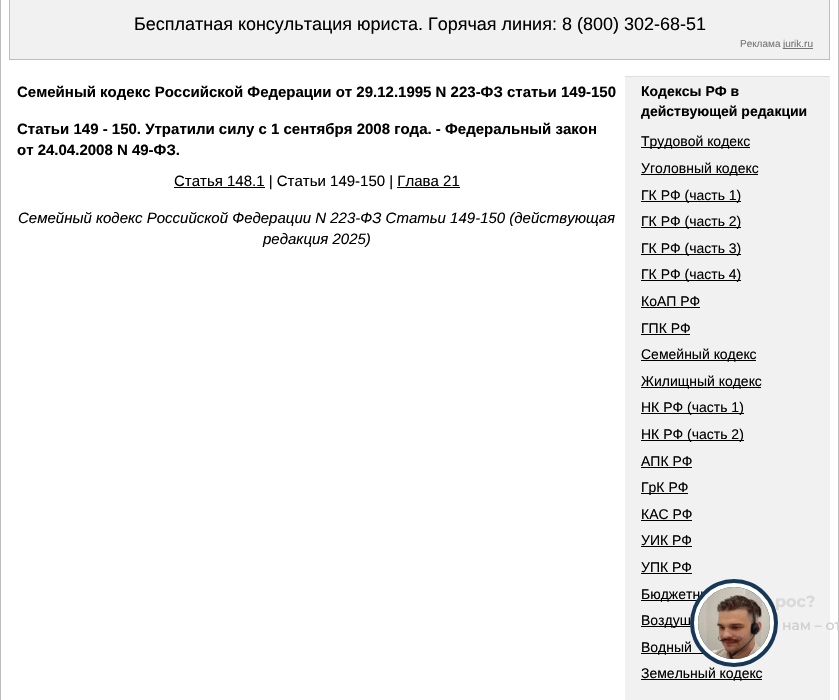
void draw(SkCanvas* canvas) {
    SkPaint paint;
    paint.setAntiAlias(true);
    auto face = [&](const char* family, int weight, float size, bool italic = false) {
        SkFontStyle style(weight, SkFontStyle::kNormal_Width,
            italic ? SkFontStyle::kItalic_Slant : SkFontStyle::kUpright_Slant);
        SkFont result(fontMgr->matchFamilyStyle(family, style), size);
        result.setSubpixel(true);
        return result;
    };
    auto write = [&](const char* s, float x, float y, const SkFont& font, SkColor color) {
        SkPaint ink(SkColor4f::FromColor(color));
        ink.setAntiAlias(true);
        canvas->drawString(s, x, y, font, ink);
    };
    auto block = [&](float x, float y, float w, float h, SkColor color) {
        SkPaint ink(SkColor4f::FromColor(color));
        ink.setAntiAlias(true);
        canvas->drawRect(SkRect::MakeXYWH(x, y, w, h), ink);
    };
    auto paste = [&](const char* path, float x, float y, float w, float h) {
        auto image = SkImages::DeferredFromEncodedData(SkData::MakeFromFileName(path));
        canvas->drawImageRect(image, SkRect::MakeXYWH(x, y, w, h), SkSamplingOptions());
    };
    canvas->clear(SK_ColorWHITE);
    block(838, 0, 1, 700, SkColorSetRGB(189, 189, 189));
    block(0, 0, 1, 700, SkColorSetRGB(189, 189, 189));
    paint.setColor(SkColorSetRGB(241, 241, 241));
    canvas->drawRect(SkRect::MakeXYWH(9.5f, -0.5f, 820, 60), paint);
    paint.setStyle(SkPaint::kStroke_Style);
    paint.setStrokeWidth(1);
    paint.setColor(SkColorSetRGB(189, 189, 189));
    canvas->drawRect(SkRect::MakeXYWH(9.5f, -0.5f, 820, 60), paint);
    auto kFont1 = face("Liberation Sans", 400, 18);
    write("Бесплатная консультация юриста. Горячая линия: 8 (800) 302-68-51", 134, 30, kFont1, SK_ColorBLACK);
    auto kFont2 = face("Liberation Sans", 400, 10);
    write("Реклама", 740, 47, kFont2, SkColorSetRGB(117, 117, 117));
    block(783, 48, 30, 1, SkColorSetRGB(117, 117, 117));
    write("jurik.ru", 783, 47, kFont2, SkColorSetRGB(117, 117, 117));
    auto kFont3 = face("Liberation Sans", 700, 15);
    write("Семейный кодекс Российской Федерации от 29.12.1995 N 223-ФЗ статьи 149-150", 17, 97, kFont3, SK_ColorBLACK);
    write("Статьи 149 - 150. Утратили силу с 1 сентября 2008 года. - Федеральный закон", 17, 134, kFont3, SK_ColorBLACK);
    write("от 24.04.2008 N 49-ФЗ.", 17, 155, kFont3, SK_ColorBLACK);
    block(174, 187, 91, 1, SK_ColorBLACK);
    auto kFont4 = face("Liberation Sans", 400, 15);
    write("Статья 148.1 | Статьи 149-150 | Глава 21", 174, 186, kFont4, SK_ColorBLACK);
    block(397, 187, 63, 1, SK_ColorBLACK);
    auto kFont5 = face("Liberation Sans", 400, 15, true);
    write("Семейный кодекс Российской Федерации N 223-ФЗ Статьи 149-150 (действующая", 18, 223, kFont5, SK_ColorBLACK);
    write("редакция 2025)", 263, 244, kFont5, SK_ColorBLACK);
    block(625, 77, 205, 623, SkColorSetRGB(241, 241, 241));
    block(625, 76, 205, 1, SkColorSetRGB(222, 222, 222));
    auto kFont6 = face("Liberation Sans", 700, 14);
    write("Кодексы РФ в", 641, 96, kFont6, SK_ColorBLACK);
    write("действующей редакции", 641, 116, kFont6, SK_ColorBLACK);
    block(641, 147, 109, 1, SK_ColorBLACK);
    auto kFont7 = face("Liberation Sans", 400, 14);
    write("Трудовой кодекс", 641, 146, kFont7, SK_ColorBLACK);
    block(641, 174, 117, 1, SK_ColorBLACK);
    write("Уголовный кодекс", 641, 173, kFont7, SK_ColorBLACK);
    block(641, 201, 100, 1, SK_ColorBLACK);
    write("ГК РФ (часть 1)", 641, 200, kFont7, SK_ColorBLACK);
    block(641, 227, 100, 1, SK_ColorBLACK);
    write("ГК РФ (часть 2)", 641, 226, kFont7, SK_ColorBLACK);
    block(641, 254, 100, 1, SK_ColorBLACK);
    write("ГК РФ (часть 3)", 641, 253, kFont7, SK_ColorBLACK);
    block(641, 280, 100, 1, SK_ColorBLACK);
    write("ГК РФ (часть 4)", 641, 279, kFont7, SK_ColorBLACK);
    write("КоАП РФ", 641, 306, kFont7, SK_ColorBLACK);
    block(641, 307, 59, 1, SK_ColorBLACK);
    write("ГПК РФ", 641, 333, kFont7, SK_ColorBLACK);
    block(641, 334, 49, 1, SK_ColorBLACK);
    block(641, 360, 115, 1, SK_ColorBLACK);
    write("Семейный кодекс", 641, 359, kFont7, SK_ColorBLACK);
    block(641, 387, 120, 1, SK_ColorBLACK);
    write("Жилищный кодекс", 641, 386, kFont7, SK_ColorBLACK);
    block(641, 413, 103, 1, SK_ColorBLACK);
    write("НК РФ (часть 1)", 641, 412, kFont7, SK_ColorBLACK);
    block(641, 440, 103, 1, SK_ColorBLACK);
    write("НК РФ (часть 2)", 641, 439, kFont7, SK_ColorBLACK);
    write("АПК РФ", 641, 466, kFont7, SK_ColorBLACK);
    block(641, 467, 51, 1, SK_ColorBLACK);
    block(641, 493, 47, 1, SK_ColorBLACK);
    write("ГрК РФ", 641, 492, kFont7, SK_ColorBLACK);
    write("КАС РФ", 641, 519, kFont7, SK_ColorBLACK);
    block(641, 520, 51, 1, SK_ColorBLACK);
    write("УИК РФ", 641, 545, kFont7, SK_ColorBLACK);
    block(641, 546, 51, 1, SK_ColorBLACK);
    write("УПК РФ", 641, 572, kFont7, SK_ColorBLACK);
    block(641, 573, 51, 1, SK_ColorBLACK);
    block(641, 600, 56, 1, SK_ColorBLACK);
    write("Бюджетны", 641, 599, kFont7, SK_ColorBLACK);
    block(641, 626, 50, 1, SK_ColorBLACK);
    write("Воздуш", 641, 625, kFont7, SK_ColorBLACK);
    block(641, 653, 62, 1, SK_ColorBLACK);
    write("Водный", 641, 652, kFont7, SK_ColorBLACK);
    block(641, 679, 121, 1, SK_ColorBLACK);
    write("Земельный кодекс", 641, 678, kFont7, SK_ColorBLACK);
    auto kFont8 = face("Montserrat", 700, 16);
    write("рос?", 775, 607, kFont8, SkColorSetRGB(217, 217, 217));
    paint.setStyle(SkPaint::kFill_Style);
    paint.setColor(SkColorSetRGB(22, 55, 85));
    canvas->drawCircle(734, 623, 44, paint);
    paint.setStyle(SkPaint::kStroke_Style);
    paint.setStrokeWidth(4);
    paint.setColor(SK_ColorWHITE);
    canvas->drawCircle(734, 623, 38, paint);
    paste("pic1.png", 698, 587, 72, 72);
    auto kFont9 = face("Montserrat", 500, 14);
    write("нам – от", 782, 630, kFont9, SkColorSetRGB(206, 206, 206));
}
